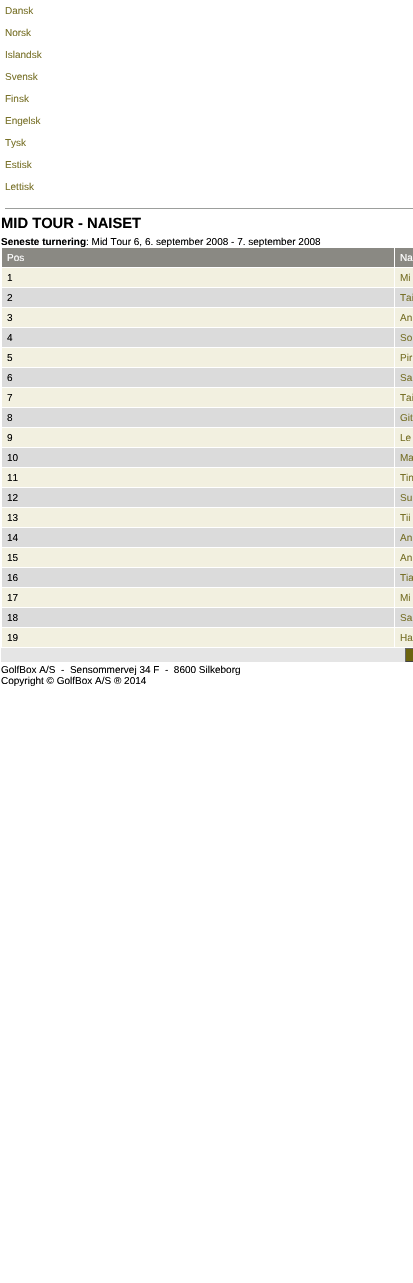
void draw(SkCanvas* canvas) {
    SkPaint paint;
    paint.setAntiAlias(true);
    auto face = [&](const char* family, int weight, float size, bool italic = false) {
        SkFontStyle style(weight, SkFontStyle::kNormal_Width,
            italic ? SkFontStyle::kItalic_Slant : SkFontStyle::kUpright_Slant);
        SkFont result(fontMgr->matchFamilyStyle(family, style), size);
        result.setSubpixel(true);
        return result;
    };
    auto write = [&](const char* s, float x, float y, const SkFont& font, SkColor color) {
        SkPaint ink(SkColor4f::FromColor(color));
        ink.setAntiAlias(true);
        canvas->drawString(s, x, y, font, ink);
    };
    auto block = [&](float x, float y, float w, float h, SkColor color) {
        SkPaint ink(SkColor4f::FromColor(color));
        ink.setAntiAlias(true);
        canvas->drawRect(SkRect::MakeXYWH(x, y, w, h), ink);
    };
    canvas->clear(SK_ColorWHITE);
    auto kFont1 = face("Liberation Sans", 400, 10);
    write("Dansk", 5, 14, kFont1, SkColorSetRGB(120, 113, 40));
    write("Norsk", 5, 36, kFont1, SkColorSetRGB(120, 113, 40));
    write("Islandsk", 5, 58, kFont1, SkColorSetRGB(120, 113, 40));
    write("Svensk", 5, 80, kFont1, SkColorSetRGB(120, 113, 40));
    write("Finsk", 5, 102, kFont1, SkColorSetRGB(120, 113, 40));
    write("Engelsk", 5, 124, kFont1, SkColorSetRGB(120, 113, 40));
    write("Tysk", 5, 146, kFont1, SkColorSetRGB(120, 113, 40));
    write("Estisk", 5, 168, kFont1, SkColorSetRGB(120, 113, 40));
    write("Lettisk", 5, 190, kFont1, SkColorSetRGB(120, 113, 40));
    block(5, 208, 408, 1, SkColorSetRGB(156, 158, 156));
    auto kFont2 = face("Liberation Sans", 700, 14.75f);
    write("MID TOUR - NAISET", 1, 228, kFont2, SK_ColorBLACK);
    auto kFont3 = face("Liberation Sans", 700, 10);
    write("Seneste turnering", 1, 245, kFont3, SK_ColorBLACK);
    write(": Mid Tour 6, 6. september 2008 - 7. september 2008", 86, 245, kFont1, SK_ColorBLACK);
    block(2, 248, 411, 19, SkColorSetRGB(138, 137, 131));
    write("Pos", 7, 261, kFont1, SK_ColorWHITE);
    write("Na", 400, 261, kFont1, SK_ColorWHITE);
    block(2, 268, 411, 19, SkColorSetRGB(242, 240, 224));
    write("1", 7, 281, kFont1, SK_ColorBLACK);
    write("Mi", 400, 281, kFont1, SkColorSetRGB(120, 113, 40));
    block(2, 288, 411, 19, SkColorSetRGB(219, 219, 219));
    write("2", 7, 301, kFont1, SK_ColorBLACK);
    write("Tai", 400, 301, kFont1, SkColorSetRGB(120, 113, 40));
    block(2, 308, 411, 19, SkColorSetRGB(242, 240, 224));
    write("3", 7, 321, kFont1, SK_ColorBLACK);
    write("An", 400, 321, kFont1, SkColorSetRGB(120, 113, 40));
    block(2, 328, 411, 19, SkColorSetRGB(219, 219, 219));
    write("4", 7, 341, kFont1, SK_ColorBLACK);
    write("So", 400, 341, kFont1, SkColorSetRGB(120, 113, 40));
    block(2, 348, 411, 19, SkColorSetRGB(242, 240, 224));
    write("5", 7, 361, kFont1, SK_ColorBLACK);
    write("Pir", 400, 361, kFont1, SkColorSetRGB(120, 113, 40));
    block(2, 368, 411, 19, SkColorSetRGB(219, 219, 219));
    write("6", 7, 381, kFont1, SK_ColorBLACK);
    write("Sa", 400, 381, kFont1, SkColorSetRGB(120, 113, 40));
    block(2, 388, 411, 19, SkColorSetRGB(242, 240, 224));
    write("7", 7, 401, kFont1, SK_ColorBLACK);
    write("Tai", 400, 401, kFont1, SkColorSetRGB(120, 113, 40));
    block(2, 408, 411, 19, SkColorSetRGB(219, 219, 219));
    write("8", 7, 421, kFont1, SK_ColorBLACK);
    write("Git", 400, 421, kFont1, SkColorSetRGB(120, 113, 40));
    block(2, 428, 411, 19, SkColorSetRGB(242, 240, 224));
    write("9", 7, 441, kFont1, SK_ColorBLACK);
    write("Le", 400, 441, kFont1, SkColorSetRGB(120, 113, 40));
    block(2, 448, 411, 19, SkColorSetRGB(219, 219, 219));
    write("10", 7, 461, kFont1, SK_ColorBLACK);
    write("Ma", 400, 461, kFont1, SkColorSetRGB(120, 113, 40));
    block(2, 468, 411, 19, SkColorSetRGB(242, 240, 224));
    write("11", 7, 481, kFont1, SK_ColorBLACK);
    write("Tin", 400, 481, kFont1, SkColorSetRGB(120, 113, 40));
    block(2, 488, 411, 19, SkColorSetRGB(219, 219, 219));
    write("12", 7, 501, kFont1, SK_ColorBLACK);
    write("Su", 400, 501, kFont1, SkColorSetRGB(120, 113, 40));
    block(2, 508, 411, 19, SkColorSetRGB(242, 240, 224));
    write("13", 7, 521, kFont1, SK_ColorBLACK);
    write("Tii", 400, 521, kFont1, SkColorSetRGB(120, 113, 40));
    block(2, 528, 411, 19, SkColorSetRGB(219, 219, 219));
    write("14", 7, 541, kFont1, SK_ColorBLACK);
    write("An", 400, 541, kFont1, SkColorSetRGB(120, 113, 40));
    block(2, 548, 411, 19, SkColorSetRGB(242, 240, 224));
    write("15", 7, 561, kFont1, SK_ColorBLACK);
    write("An", 400, 561, kFont1, SkColorSetRGB(120, 113, 40));
    block(2, 568, 411, 19, SkColorSetRGB(219, 219, 219));
    write("16", 7, 581, kFont1, SK_ColorBLACK);
    write("Tia", 400, 581, kFont1, SkColorSetRGB(120, 113, 40));
    block(2, 588, 411, 19, SkColorSetRGB(242, 240, 224));
    write("17", 7, 601, kFont1, SK_ColorBLACK);
    write("Mi", 400, 601, kFont1, SkColorSetRGB(120, 113, 40));
    block(2, 608, 411, 19, SkColorSetRGB(219, 219, 219));
    write("18", 7, 621, kFont1, SK_ColorBLACK);
    write("Sa", 400, 621, kFont1, SkColorSetRGB(120, 113, 40));
    block(2, 628, 411, 19, SkColorSetRGB(242, 240, 224));
    write("19", 7, 641, kFont1, SK_ColorBLACK);
    block(394, 247, 1, 401, SK_ColorWHITE);
    write("Ha", 400, 641, kFont1, SkColorSetRGB(120, 113, 40));
    block(1, 648, 404, 14, SkColorSetRGB(229, 229, 229));
    block(406, 648, 7, 14, SkColorSetRGB(108, 100, 14));
    block(405, 648, 8, 1, SkColorSetRGB(102, 102, 102));
    block(405, 661, 8, 1, SkColorSetRGB(68, 68, 68));
    block(405, 648, 1, 14, SkColorSetRGB(102, 102, 102));
    write("GolfBox A/S  -  Sensommervej 34 F  -  8600 Silkeborg", 1, 673, kFont1, SK_ColorBLACK);
    write("Copyright © GolfBox A/S ® 2014", 1, 684, kFont1, SK_ColorBLACK);
}
